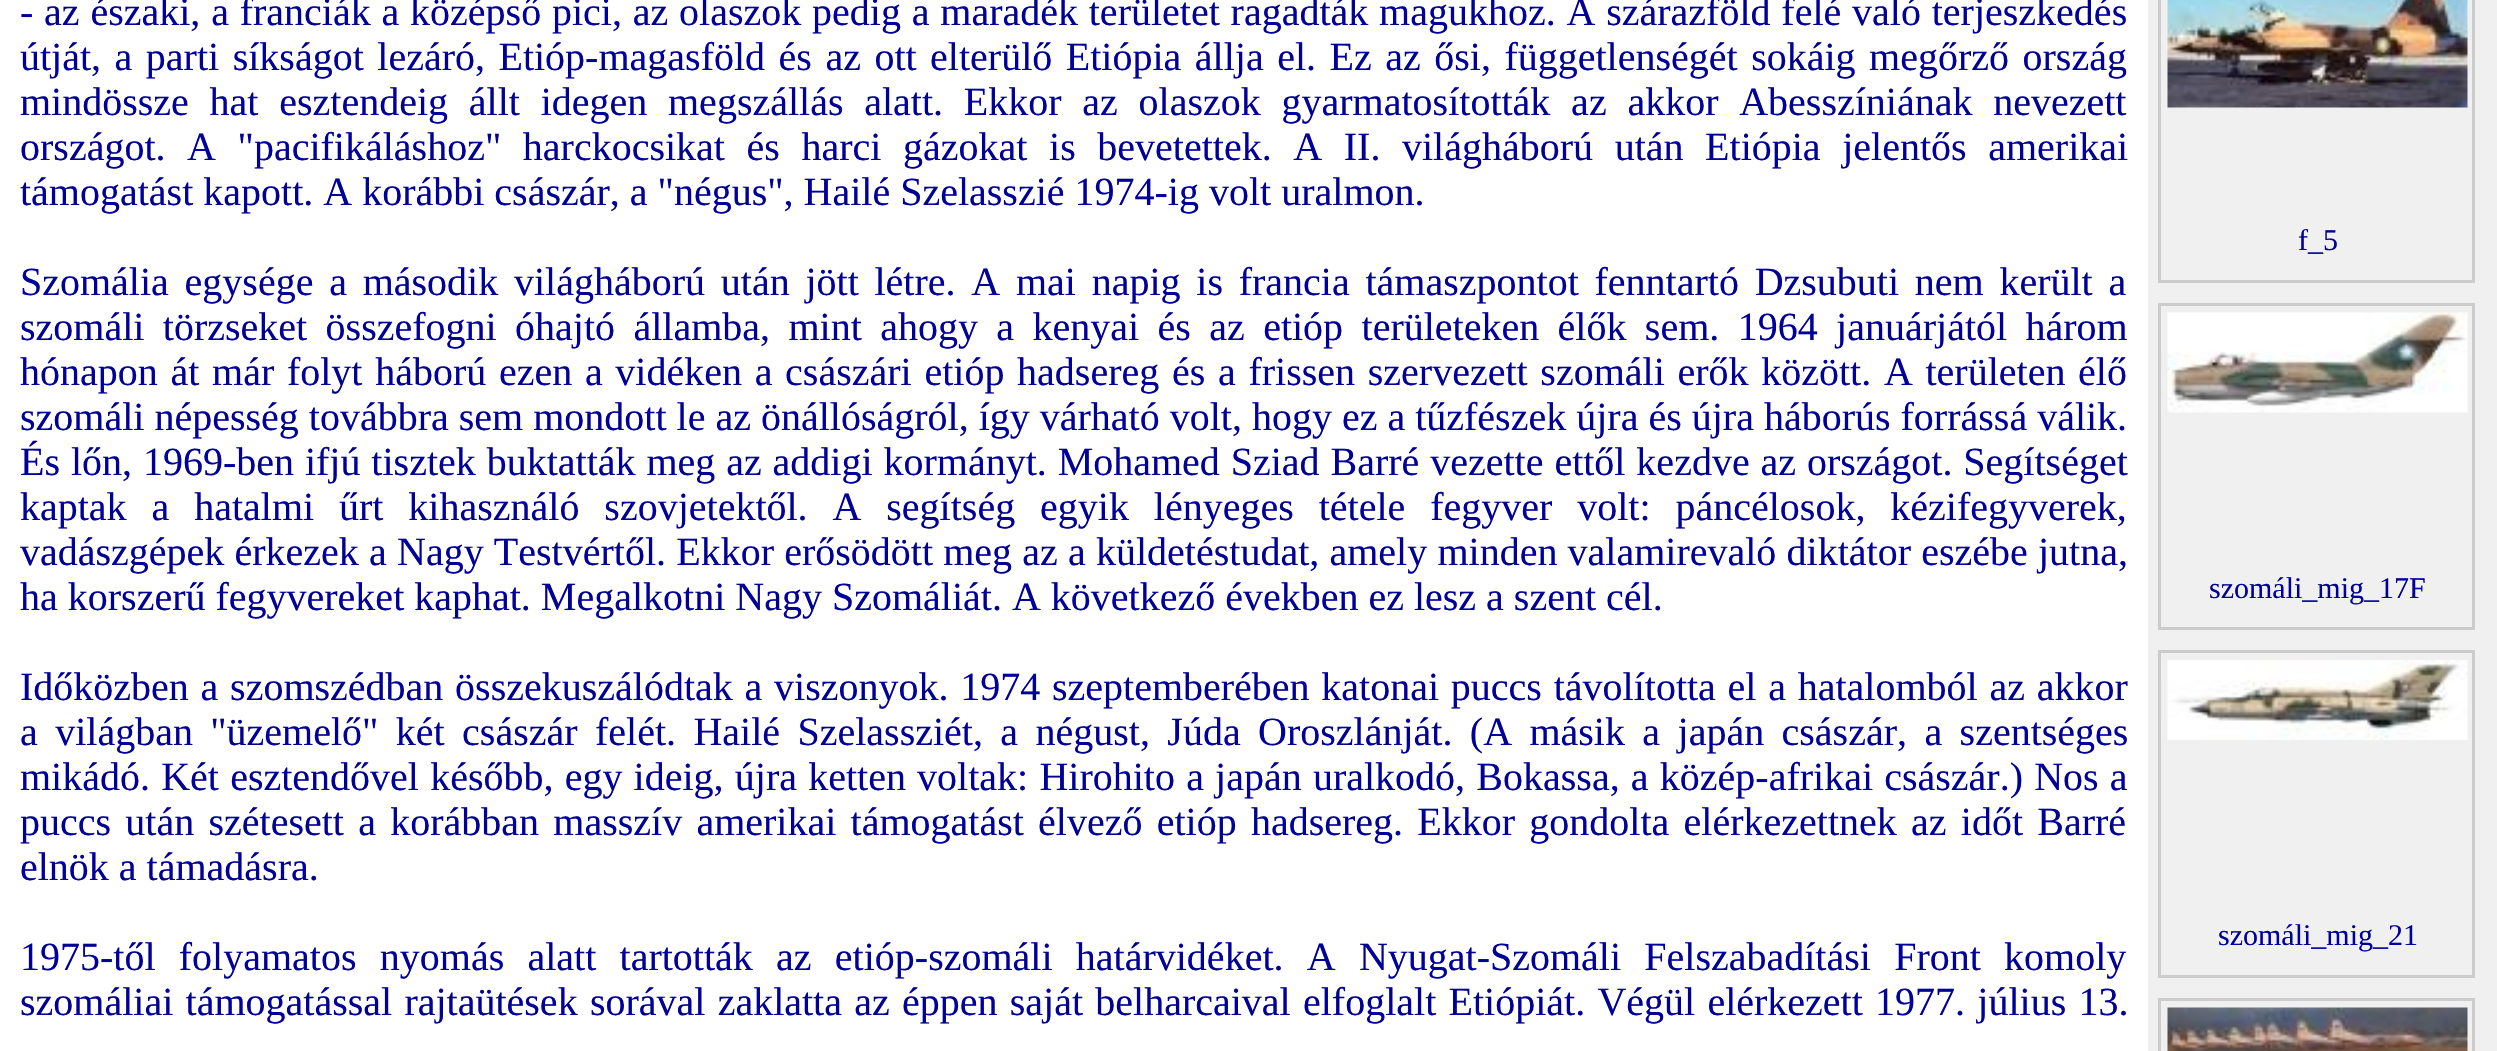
void draw(SkCanvas* canvas) {
    SkPaint paint;
    paint.setAntiAlias(true);
    auto face = [&](const char* family, int weight, float size, bool italic = false) {
        SkFontStyle style(weight, SkFontStyle::kNormal_Width,
            italic ? SkFontStyle::kItalic_Slant : SkFontStyle::kUpright_Slant);
        SkFont result(fontMgr->matchFamilyStyle(family, style), size);
        result.setSubpixel(true);
        return result;
    };
    auto write = [&](const char* s, float x, float y, const SkFont& font, SkColor color) {
        SkPaint ink(SkColor4f::FromColor(color));
        ink.setAntiAlias(true);
        canvas->drawString(s, x, y, font, ink);
    };
    auto writeSpaced = [&](const char* s, float x, float y, const SkFont& font, const SkPaint& ink, float letter, float word) {
        std::vector<SkGlyphID> glyphs(font.countText(s, strlen(s), SkTextEncoding::kUTF8));
        std::vector<float> xs(glyphs.size());
        font.textToGlyphs(s, strlen(s), SkTextEncoding::kUTF8, glyphs);
        font.getXPos(glyphs, xs, x);
        float extra = 0;
        for (size_t i = 0; i < glyphs.size(); i++) {
            xs[i] += extra;
            extra += letter + word * (glyphs[i] == font.unicharToGlyph(' '));
        }
        canvas->drawTextBlob(SkTextBlob::MakeFromPosHGlyphs(glyphs, xs, y, font), 0, 0, ink);
    };
    auto block = [&](float x, float y, float w, float h, SkColor color) {
        SkPaint ink(SkColor4f::FromColor(color));
        ink.setAntiAlias(true);
        canvas->drawRect(SkRect::MakeXYWH(x, y, w, h), ink);
    };
    auto paste = [&](const char* path, float x, float y, float w, float h) {
        auto image = SkImages::DeferredFromEncodedData(SkData::MakeFromFileName(path));
        canvas->drawImageRect(image, SkRect::MakeXYWH(x, y, w, h), SkSamplingOptions());
    };
    canvas->clear(SK_ColorWHITE);
    auto kFont1 = face("Liberation Serif", 400, 40);
    paint.setColor(SkColorSetRGB(0, 0, 153));
    writeSpaced("- az északi, a franciák a középső pici, az olaszok pedig a maradék területet ragadták magukhoz. A szárazföld felé való terjeszkedés", 20, 25, kFont1, paint, 0, 0.8f);
    writeSpaced("útját, a parti síkságot lezáró, Etióp-magasföld és az ott elterülő Etiópia állja el. Ez az ősi, függetlenségét sokáig megőrző ország", 20, 70, kFont1, paint, 0, 3.5f);
    writeSpaced("mindössze hat esztendeig állt idegen megszállás alatt. Ekkor az olaszok gyarmatosították az akkor Abesszíniának nevezett", 20, 115, kFont1, paint, 0, 10.75f);
    writeSpaced("országot. A \"pacifikáláshoz\" harckocsikat és harci gázokat is bevetettek. A II. világháború után Etiópia jelentős amerikai", 20, 160, kFont1, paint, 0, 11.6f);
    write("támogatást kapott. A korábbi császár, a \"négus\", Hailé Szelasszié 1974-ig volt uralmon.", 20, 205, kFont1, SkColorSetRGB(0, 0, 153));
    writeSpaced("Szomália egysége a második világháború után jött létre. A mai napig is francia támaszpontot fenntartó Dzsubuti nem került a", 20, 295, kFont1, paint, 0, 5.75f);
    writeSpaced("szomáli törzseket összefogni óhajtó államba, mint ahogy a kenyai és az etióp területeken élők sem. 1964 januárjától három", 20, 340, kFont1, paint, 0, 8.4f);
    writeSpaced("hónapon át már folyt háború ezen a vidéken a császári etióp hadsereg és a frissen szervezett szomáli erők között. A területen élő", 20, 385, kFont1, paint, 0, 2.7f);
    write("szomáli népesség továbbra sem mondott le az önállóságról, így várható volt, hogy ez a tűzfészek újra és újra háborús forrássá válik.", 20, 430, kFont1, SkColorSetRGB(0, 0, 153));
    writeSpaced("És lőn, 1969-ben ifjú tisztek buktatták meg az addigi kormányt. Mohamed Sziad Barré vezette ettől kezdve az országot. Segítséget", 20, 475, kFont1, paint, 0, 0.9f);
    writeSpaced("kaptak a hatalmi űrt kihasználó szovjetektől. A segítség egyik lényeges tétele fegyver volt: páncélosok, kézifegyverek,", 20, 520, kFont1, paint, 0, 14.9f);
    writeSpaced("vadászgépek érkezek a Nagy Testvértől. Ekkor erősödött meg az a küldetéstudat, amely minden valamirevaló diktátor eszébe jutna,", 20, 565, kFont1, paint, 0, 0.2f);
    write("ha korszerű fegyvereket kaphat. Megalkotni Nagy Szomáliát. A következő években ez lesz a szent cél.", 20, 610, kFont1, SkColorSetRGB(0, 0, 153));
    writeSpaced("Időközben a szomszédban összekuszálódtak a viszonyok. 1974 szeptemberében katonai puccs távolította el a hatalomból az akkor", 20, 700, kFont1, paint, 0, 1.75f);
    writeSpaced("a világban \"üzemelő\" két császár felét. Hailé Szelassziét, a négust, Júda Oroszlánját. (A másik a japán császár, a szentséges", 20, 745, kFont1, paint, 0, 7.4f);
    writeSpaced("mikádó. Két esztendővel később, egy ideig, újra ketten voltak: Hirohito a japán uralkodó, Bokassa, a közép-afrikai császár.) Nos a", 20, 790, kFont1, paint, 0, 1.2f);
    writeSpaced("puccs után szétesett a korábban masszív amerikai támogatást élvező etióp hadsereg. Ekkor gondolta elérkezettnek az időt Barré", 20, 835, kFont1, paint, 0, 4.25f);
    write("elnök a támadásra.", 20, 880, kFont1, SkColorSetRGB(0, 0, 153));
    writeSpaced("1975-től folyamatos nyomás alatt tartották az etióp-szomáli határvidéket. A Nyugat-Szomáli Felszabadítási Front komoly", 20, 970, kFont1, paint, 0, 13.25f);
    writeSpaced("szomáliai támogatással rajtaütések sorával zaklatta az éppen saját belharcaival elfoglalt Etiópiát. Végül elérkezett 1977. július 13.", 20, 1015, kFont1, paint, 0, 2.25f);
    block(2148, 0, 349, 1051, SkColorSetRGB(240, 240, 240));
    paint.setStyle(SkPaint::kStroke_Style);
    paint.setStrokeWidth(3);
    paint.setColor(SkColorSetRGB(204, 204, 204));
    canvas->drawRect(SkRect::MakeXYWH(2159.5f, -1.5f, 314, 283), paint);
    paste("pic1.png", 2167, 0, 301, 108);
    auto kFont2 = face("Liberation Serif", 400, 30);
    write("f_5", 2298, 250, kFont2, SkColorSetRGB(0, 0, 153));
    canvas->drawRect(SkRect::MakeXYWH(2159.5f, 304.5f, 314, 324), paint);
    paste("pic2.png", 2167, 312, 301, 101);
    write("szomáli_mig_17F", 2209, 598, kFont2, SkColorSetRGB(0, 0, 153));
    canvas->drawRect(SkRect::MakeXYWH(2159.5f, 651.5f, 314, 325), paint);
    paste("pic3.png", 2167, 660, 301, 80);
    write("szomáli_mig_21", 2218, 945, kFont2, SkColorSetRGB(0, 0, 153));
    canvas->drawRect(SkRect::MakeXYWH(2159.5f, 999.5f, 314, 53), paint);
    paste("pic4.png", 2167, 1007, 301, 44);
}
